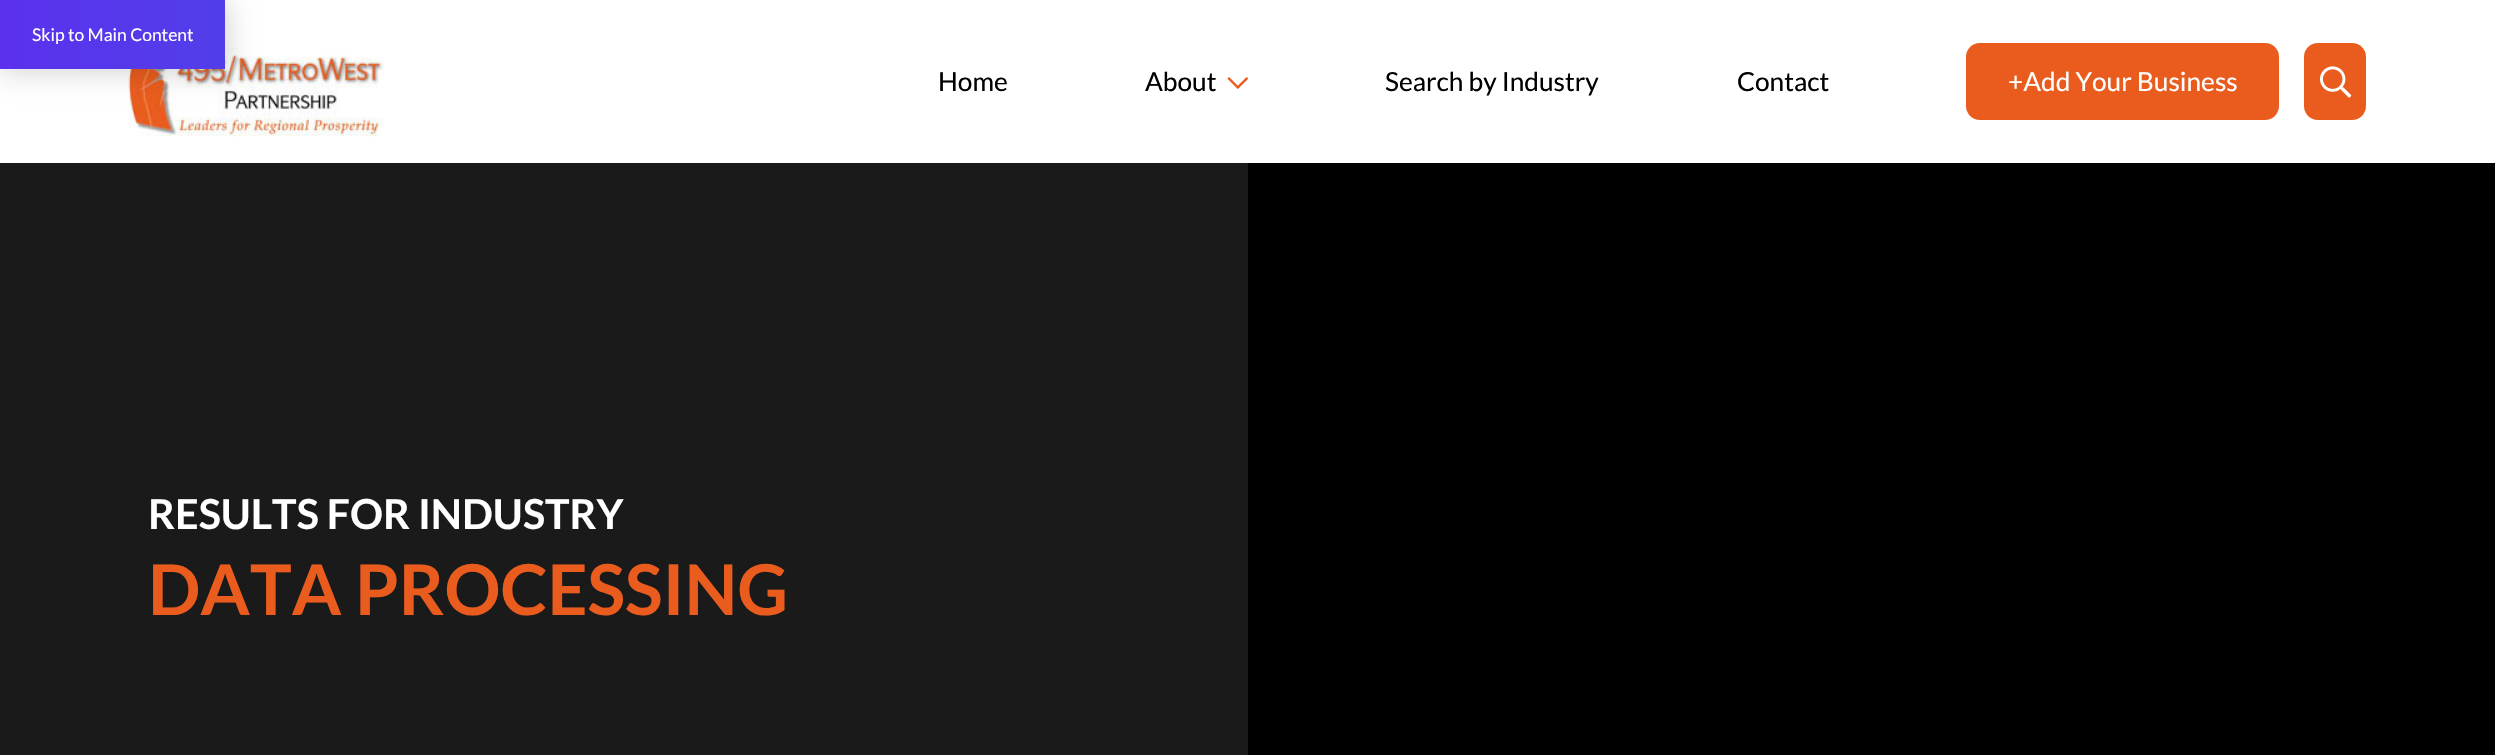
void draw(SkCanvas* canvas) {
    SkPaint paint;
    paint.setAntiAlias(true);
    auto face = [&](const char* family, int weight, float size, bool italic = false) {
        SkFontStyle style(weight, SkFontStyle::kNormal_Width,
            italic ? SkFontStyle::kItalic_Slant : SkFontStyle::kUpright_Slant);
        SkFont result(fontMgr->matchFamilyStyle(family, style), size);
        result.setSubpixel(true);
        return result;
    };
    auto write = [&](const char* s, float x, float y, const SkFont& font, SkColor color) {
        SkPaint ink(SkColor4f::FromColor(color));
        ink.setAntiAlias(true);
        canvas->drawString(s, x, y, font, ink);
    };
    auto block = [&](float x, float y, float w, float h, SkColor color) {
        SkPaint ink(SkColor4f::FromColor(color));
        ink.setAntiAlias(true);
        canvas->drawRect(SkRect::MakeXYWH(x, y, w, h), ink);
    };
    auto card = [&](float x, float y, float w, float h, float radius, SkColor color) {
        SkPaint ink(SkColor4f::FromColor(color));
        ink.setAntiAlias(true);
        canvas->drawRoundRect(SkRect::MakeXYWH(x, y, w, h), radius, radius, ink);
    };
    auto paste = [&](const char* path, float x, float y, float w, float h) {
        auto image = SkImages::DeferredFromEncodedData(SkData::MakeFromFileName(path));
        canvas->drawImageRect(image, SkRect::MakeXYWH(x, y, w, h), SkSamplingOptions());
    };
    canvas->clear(SkColorSetRGB(26, 26, 26));
    block(0, 0, 2495, 163, SK_ColorWHITE);
    paste("pic1.png", 128, 27, 256, 110);
    paint.setColor(SkColorSetARGB(51, 0, 0, 0));
    paint.setMaskFilter(SkMaskFilter::MakeBlur(kNormal_SkBlurStyle, 15.5f));
    canvas->drawRect(SkRect::MakeXYWH(0, 0, 225, 69), paint);
    paint.setMaskFilter(nullptr);
    {
        const SkColor colors[] = {SkColorSetRGB(91, 49, 238), SkColorSetRGB(82, 62, 233)};
        const float stops[] = {0, 1};
        const SkPoint ends[] = {{0, 34}, {225, 34}};
        paint.setShader(SkGradientShader::MakeLinear(ends, colors, stops, 2, SkTileMode::kClamp));
        paint.setAlpha(255);
    }
    canvas->drawRect(SkRect::MakeXYWH(0, 0, 225, 69), paint);
    auto kFont1 = face("Lato", 400, 17.5f);
    write("Skip to Main Content", 32, 41, kFont1, SK_ColorWHITE);
    auto kFont2 = face("Lato", 400, 26.25f);
    write("Home", 938, 91, kFont2, SK_ColorBLACK);
    write("About", 1145, 91, kFont2, SK_ColorBLACK);
    paste("pic2.png", 1227, 77, 21, 12);
    write("Search by Industry", 1385, 91, kFont2, SK_ColorBLACK);
    write("Contact", 1737, 91, kFont2, SK_ColorBLACK);
    card(1966, 43, 313, 77, 14, SkColorSetRGB(234, 92, 29));
    write("+Add Your Business", 2008, 91, kFont2, SK_ColorWHITE);
    card(2304, 43, 62, 77, 14, SkColorSetRGB(234, 92, 29));
    paste("pic3.png", 2320, 66, 32, 32);
    auto kFont3 = face("Lato", 700, 41.25f);
    write("RESULTS FOR INDUSTRY", 148, 529, kFont3, SK_ColorWHITE);
    auto kFont4 = face("Lato", 700, 70);
    write("DATA PROCESSING", 148, 615, kFont4, SkColorSetRGB(234, 92, 29));
    block(1248, 163, 1247, 592, SK_ColorBLACK);
}
